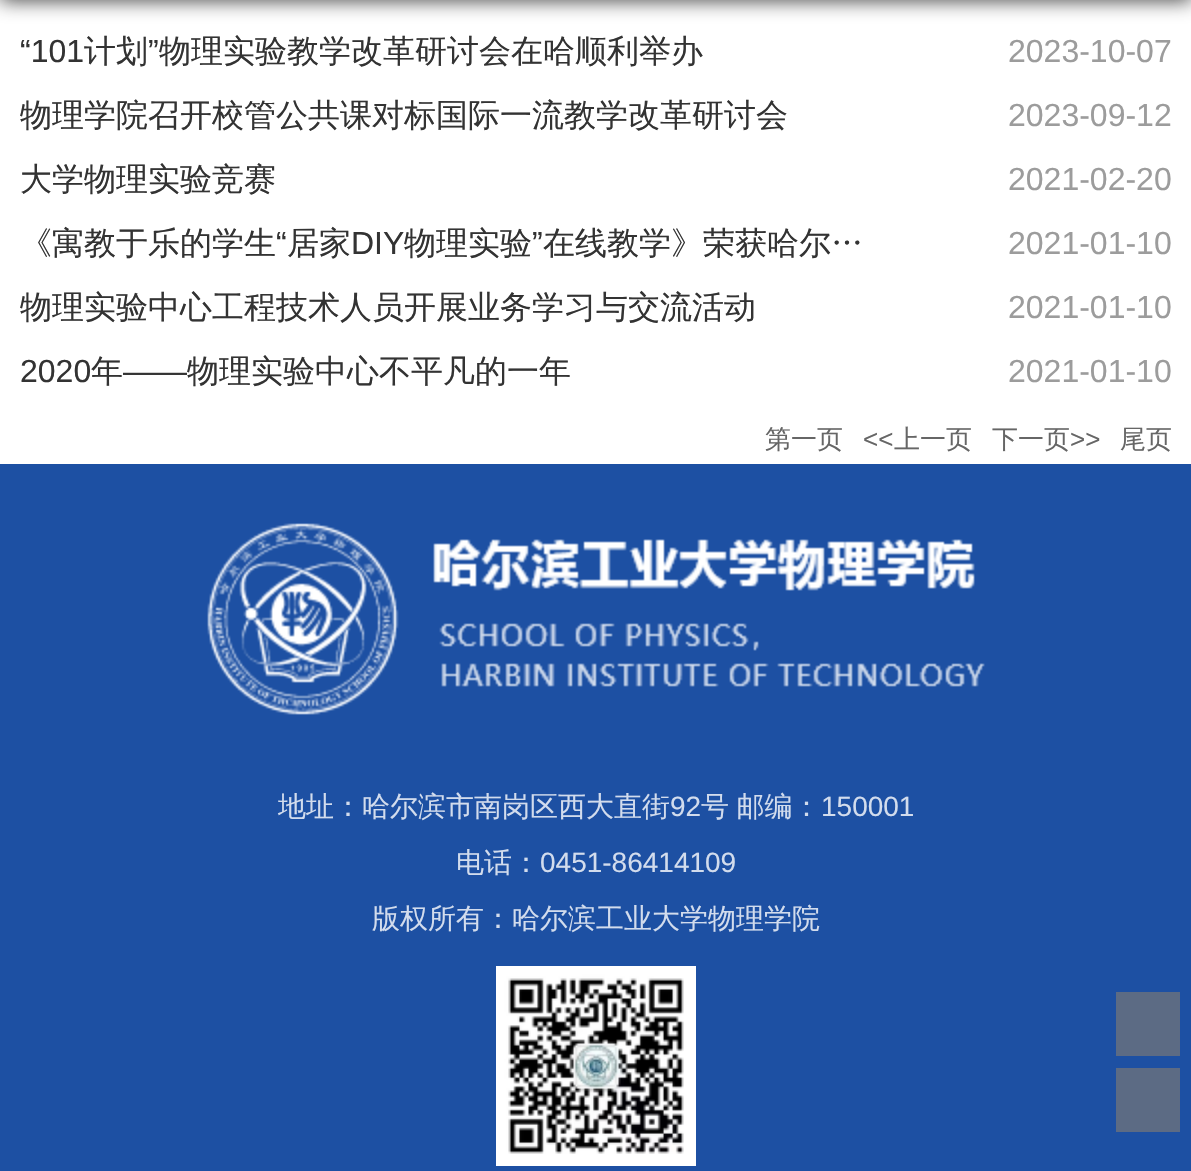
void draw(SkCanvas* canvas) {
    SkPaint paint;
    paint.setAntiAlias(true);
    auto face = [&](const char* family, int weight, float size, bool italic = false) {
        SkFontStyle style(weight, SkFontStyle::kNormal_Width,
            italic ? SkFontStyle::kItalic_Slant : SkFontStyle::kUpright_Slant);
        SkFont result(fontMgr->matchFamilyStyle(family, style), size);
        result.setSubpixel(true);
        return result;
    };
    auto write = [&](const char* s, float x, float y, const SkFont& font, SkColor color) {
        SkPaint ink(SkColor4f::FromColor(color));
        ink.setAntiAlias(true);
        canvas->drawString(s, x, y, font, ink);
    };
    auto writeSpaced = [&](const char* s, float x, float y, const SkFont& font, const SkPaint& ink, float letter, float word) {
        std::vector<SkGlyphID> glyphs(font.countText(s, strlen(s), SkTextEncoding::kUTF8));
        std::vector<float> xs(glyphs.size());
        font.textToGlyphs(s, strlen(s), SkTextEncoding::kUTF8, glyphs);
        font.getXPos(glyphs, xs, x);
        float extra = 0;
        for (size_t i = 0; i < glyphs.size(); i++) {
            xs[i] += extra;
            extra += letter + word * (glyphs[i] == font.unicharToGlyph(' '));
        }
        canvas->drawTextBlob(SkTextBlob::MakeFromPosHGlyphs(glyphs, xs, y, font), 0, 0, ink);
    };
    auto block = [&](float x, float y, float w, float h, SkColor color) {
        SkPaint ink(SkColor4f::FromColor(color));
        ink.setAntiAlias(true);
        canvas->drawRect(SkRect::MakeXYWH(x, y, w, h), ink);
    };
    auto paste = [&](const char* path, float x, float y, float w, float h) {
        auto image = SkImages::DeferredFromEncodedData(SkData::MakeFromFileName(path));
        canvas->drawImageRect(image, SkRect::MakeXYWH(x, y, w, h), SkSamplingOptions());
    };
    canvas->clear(SK_ColorWHITE);
    paint.setColor(SkColorSetARGB(204, 0, 0, 0));
    paint.setMaskFilter(SkMaskFilter::MakeBlur(kNormal_SkBlurStyle, 10));
    canvas->drawRect(SkRect::MakeXYWH(0, -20, 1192, 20), paint);
    paint.setMaskFilter(nullptr);
    auto kFont1 = face("Liberation Sans", 400, 32);
    write("“101", 20, 62, kFont1, SkColorSetRGB(51, 51, 51));
    auto kFont2 = face("WenQuanYi Zen Hei", 500, 32);
    write("计划", 84, 62, kFont2, SkColorSetRGB(51, 51, 51));
    write("”", 148, 62, kFont1, SkColorSetRGB(51, 51, 51));
    write("物理实验教学改革研讨会在哈顺利举办", 159, 62, kFont2, SkColorSetRGB(51, 51, 51));
    write("2023-10-07", 1008, 62, kFont1, SkColorSetRGB(156, 156, 156));
    write("物理学院召开校管公共课对标国际一流教学改革研讨会", 20, 126, kFont2, SkColorSetRGB(51, 51, 51));
    write("2023-09-12", 1008, 126, kFont1, SkColorSetRGB(156, 156, 156));
    write("大学物理实验竞赛", 20, 190, kFont2, SkColorSetRGB(51, 51, 51));
    write("2021-02-20", 1008, 190, kFont1, SkColorSetRGB(156, 156, 156));
    write("《寓教于乐的学生", 20, 254, kFont2, SkColorSetRGB(51, 51, 51));
    write("“", 276, 254, kFont1, SkColorSetRGB(51, 51, 51));
    write("居家", 287, 254, kFont2, SkColorSetRGB(51, 51, 51));
    write("DIY", 351, 254, kFont1, SkColorSetRGB(51, 51, 51));
    write("物理实验", 404, 254, kFont2, SkColorSetRGB(51, 51, 51));
    write("”", 532, 254, kFont1, SkColorSetRGB(51, 51, 51));
    write("在线教学》荣获哈尔…", 543, 254, kFont2, SkColorSetRGB(51, 51, 51));
    write("2021-01-10", 1008, 254, kFont1, SkColorSetRGB(156, 156, 156));
    write("物理实验中心工程技术人员开展业务学习与交流活动", 20, 318, kFont2, SkColorSetRGB(51, 51, 51));
    write("2021-01-10", 1008, 318, kFont1, SkColorSetRGB(156, 156, 156));
    write("2020", 20, 382, kFont1, SkColorSetRGB(51, 51, 51));
    write("年", 91, 382, kFont2, SkColorSetRGB(51, 51, 51));
    write("——", 123, 382, kFont1, SkColorSetRGB(51, 51, 51));
    write("物理实验中心不平凡的一年", 187, 382, kFont2, SkColorSetRGB(51, 51, 51));
    write("2021-01-10", 1008, 382, kFont1, SkColorSetRGB(156, 156, 156));
    auto kFont3 = face("WenQuanYi Zen Hei", 500, 26);
    write("第一页", 765, 448, kFont3, SkColorSetRGB(102, 102, 102));
    auto kFont4 = face("Liberation Sans", 400, 26);
    write("<<", 863, 448, kFont4, SkColorSetRGB(102, 102, 102));
    write("上一页", 894, 448, kFont3, SkColorSetRGB(102, 102, 102));
    write("下一页", 992, 448, kFont3, SkColorSetRGB(102, 102, 102));
    write(">>", 1070, 448, kFont4, SkColorSetRGB(102, 102, 102));
    write("尾页", 1120, 448, kFont3, SkColorSetRGB(102, 102, 102));
    block(0, 464, 1191, 707, SkColorSetRGB(29, 80, 163));
    paste("pic1.png", 207, 523, 778, 192);
    auto kFont5 = face("WenQuanYi Zen Hei", 500, 28);
    write("地址：哈尔滨市南岗区西大直街", 278, 816, kFont5, SkColorSetRGB(210, 220, 237));
    auto kFont6 = face("Liberation Sans", 400, 28);
    write("92", 670, 816, kFont6, SkColorSetRGB(210, 220, 237));
    paint.setColor(SkColorSetRGB(210, 220, 237));
    writeSpaced("号 邮编：", 701, 816, kFont5, paint, 0, -1);
    write("150001", 821, 816, kFont6, SkColorSetRGB(210, 220, 237));
    write("电话：", 456, 872, kFont5, SkColorSetRGB(210, 220, 237));
    write("0451-86414109", 540, 872, kFont6, SkColorSetRGB(210, 220, 237));
    write("版权所有：哈尔滨工业大学物理学院", 372, 928, kFont5, SkColorSetRGB(210, 220, 237));
    paste("pic2.png", 496, 966, 200, 200);
    block(1116, 992, 64, 64, SkColorSetRGB(92, 107, 132));
    block(1116, 1068, 64, 64, SkColorSetRGB(92, 107, 132));
}
